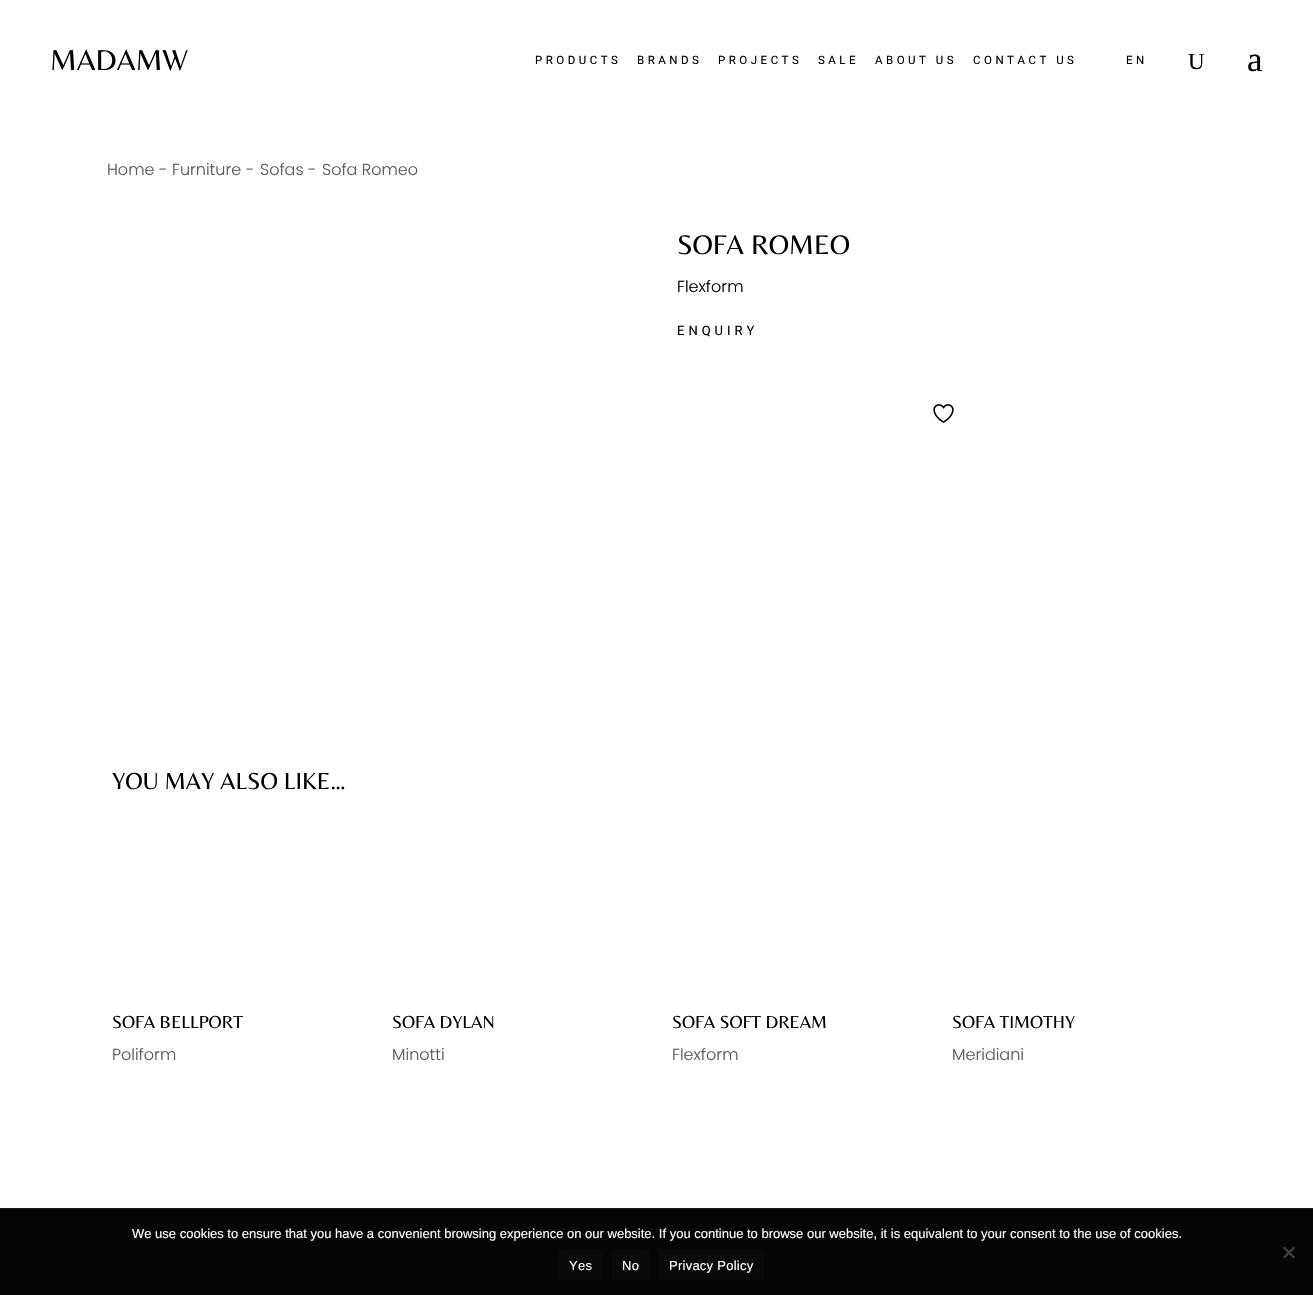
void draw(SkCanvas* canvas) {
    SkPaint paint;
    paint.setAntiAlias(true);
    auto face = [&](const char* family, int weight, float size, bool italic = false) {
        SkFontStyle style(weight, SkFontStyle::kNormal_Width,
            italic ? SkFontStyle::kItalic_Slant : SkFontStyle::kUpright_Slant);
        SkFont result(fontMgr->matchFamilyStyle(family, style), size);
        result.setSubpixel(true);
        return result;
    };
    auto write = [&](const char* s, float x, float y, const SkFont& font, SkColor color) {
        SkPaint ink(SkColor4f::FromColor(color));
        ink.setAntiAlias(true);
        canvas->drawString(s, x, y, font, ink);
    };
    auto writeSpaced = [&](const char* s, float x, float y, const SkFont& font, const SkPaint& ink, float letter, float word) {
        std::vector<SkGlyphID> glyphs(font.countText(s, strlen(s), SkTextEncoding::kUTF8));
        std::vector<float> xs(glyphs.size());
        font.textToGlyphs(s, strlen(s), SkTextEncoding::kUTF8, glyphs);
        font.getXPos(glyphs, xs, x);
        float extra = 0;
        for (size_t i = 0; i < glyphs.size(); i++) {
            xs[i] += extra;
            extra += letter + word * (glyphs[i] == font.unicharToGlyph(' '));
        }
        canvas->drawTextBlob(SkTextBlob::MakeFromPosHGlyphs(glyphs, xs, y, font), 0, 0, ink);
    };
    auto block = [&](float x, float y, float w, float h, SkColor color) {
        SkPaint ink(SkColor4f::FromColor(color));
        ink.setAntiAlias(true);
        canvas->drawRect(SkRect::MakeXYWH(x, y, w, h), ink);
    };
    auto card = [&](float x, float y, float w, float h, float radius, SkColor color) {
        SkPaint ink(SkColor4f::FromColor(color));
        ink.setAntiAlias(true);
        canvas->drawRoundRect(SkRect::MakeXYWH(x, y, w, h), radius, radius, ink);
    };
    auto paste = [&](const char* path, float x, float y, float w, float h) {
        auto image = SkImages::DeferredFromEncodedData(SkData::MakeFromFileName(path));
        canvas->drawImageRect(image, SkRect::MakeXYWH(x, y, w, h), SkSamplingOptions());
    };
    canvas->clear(SK_ColorWHITE);
    auto kFont1 = face("Belleza", 400, 30);
    write("MADAMW", 50, 70, kFont1, SK_ColorBLACK);
    auto kFont2 = face("Roboto", 400, 11.5f);
    paint.setColor(SK_ColorBLACK);
    writeSpaced("PRODUCTS", 535, 64, kFont2, paint, 3.5f, 0);
    writeSpaced("BRANDS", 637, 64, kFont2, paint, 3.5f, 0);
    writeSpaced("PROJECTS", 718, 64, kFont2, paint, 3.5f, 0);
    writeSpaced("SALE", 818, 64, kFont2, paint, 3.5f, 0);
    writeSpaced("ABOUT US", 875, 64, kFont2, paint, 3.5f, 0);
    writeSpaced("CONTACT US", 973, 64, kFont2, paint, 3.5f, 0);
    writeSpaced("EN", 1126, 64, kFont2, paint, 3.5f, 0);
    auto kFont3 = face("Liberation Serif", 400, 23);
    write("U", 1188, 69, kFont3, SK_ColorBLACK);
    auto kFont4 = face("Liberation Serif", 400, 35);
    write("a", 1247, 71, kFont4, SK_ColorBLACK);
    auto kFont5 = face("Poppins", 300, 16);
    write("Home", 107, 175, kFont5, SkColorSetRGB(89, 89, 89));
    write("-", 159, 175, kFont5, SkColorSetRGB(89, 89, 89));
    write("Furniture", 172, 175, kFont5, SkColorSetRGB(89, 89, 89));
    write("-", 246, 175, kFont5, SkColorSetRGB(89, 89, 89));
    write("Sofas", 260, 175, kFont5, SkColorSetRGB(89, 89, 89));
    write("-", 308, 175, kFont5, SkColorSetRGB(89, 89, 89));
    write("Sofa Romeo", 322, 175, kFont5, SkColorSetRGB(89, 89, 89));
    auto kFont6 = face("Belleza", 400, 28);
    write("SOFA ROMEO", 677, 254, kFont6, SK_ColorBLACK);
    write("Flexform", 677, 292, kFont5, SK_ColorBLACK);
    auto kFont7 = face("Roboto", 400, 13);
    writeSpaced("ENQUIRY", 677, 335, kFont7, paint, 4, 0);
    paste("pic1.png", 933, 404, 21, 19);
    auto kFont8 = face("Belleza", 400, 24);
    write("YOU MAY ALSO LIKE…", 112, 789, kFont8, SK_ColorBLACK);
    auto kFont9 = face("Belleza", 400, 18);
    write("SOFA BELLPORT", 112, 1028, kFont9, SK_ColorBLACK);
    write("Poliform", 112, 1060, kFont5, SkColorSetRGB(89, 89, 89));
    write("SOFA DYLAN", 392, 1028, kFont9, SK_ColorBLACK);
    write("Minotti", 392, 1060, kFont5, SkColorSetRGB(89, 89, 89));
    write("SOFA SOFT DREAM", 672, 1028, kFont9, SK_ColorBLACK);
    write("Flexform", 672, 1060, kFont5, SkColorSetRGB(89, 89, 89));
    write("SOFA TIMOTHY", 952, 1028, kFont9, SK_ColorBLACK);
    write("Meridiani", 952, 1060, kFont5, SkColorSetRGB(89, 89, 89));
    block(0, 1208, 1313, 1, SkColorSetRGB(26, 26, 26));
    block(0, 1209, 1313, 86, SkColorSetRGB(5, 5, 5));
    auto kFont10 = face("Liberation Sans", 400, 13);
    write("We use cookies to ensure that you have a convenient browsing experience on our website. If you continue to browse our website, it is equivalent to your consent to the use of cookies.", 132, 1238, kFont10, SK_ColorWHITE);
    paint.setColor(SkColorSetRGB(67, 67, 67));
    canvas->drawPath(SkPathBuilder().moveTo(1293.5f, 1246.5f).lineTo(1295, 1248).lineTo(1284.5f, 1258.5f).lineTo(1283, 1257).close().detach(), paint);
    canvas->drawPath(SkPathBuilder().moveTo(1283, 1248).lineTo(1284.5f, 1246.5f).lineTo(1295, 1257).lineTo(1293.5f, 1258.5f).close().detach(), paint);
    card(559, 1250, 43, 30, 3, SkColorSetRGB(10, 9, 9));
    paint.setColor(SK_ColorWHITE);
    writeSpaced("Yes", 569, 1270, kFont10, paint, 0.25f, 0);
    card(612, 1250, 37, 30, 3, SkColorSetRGB(10, 9, 9));
    writeSpaced("No", 622, 1270, kFont10, paint, 0.25f, 0);
    card(659, 1250, 105, 30, 3, SkColorSetRGB(10, 9, 9));
    writeSpaced("Privacy Policy", 669, 1270, kFont10, paint, 0.25f, 0);
}
